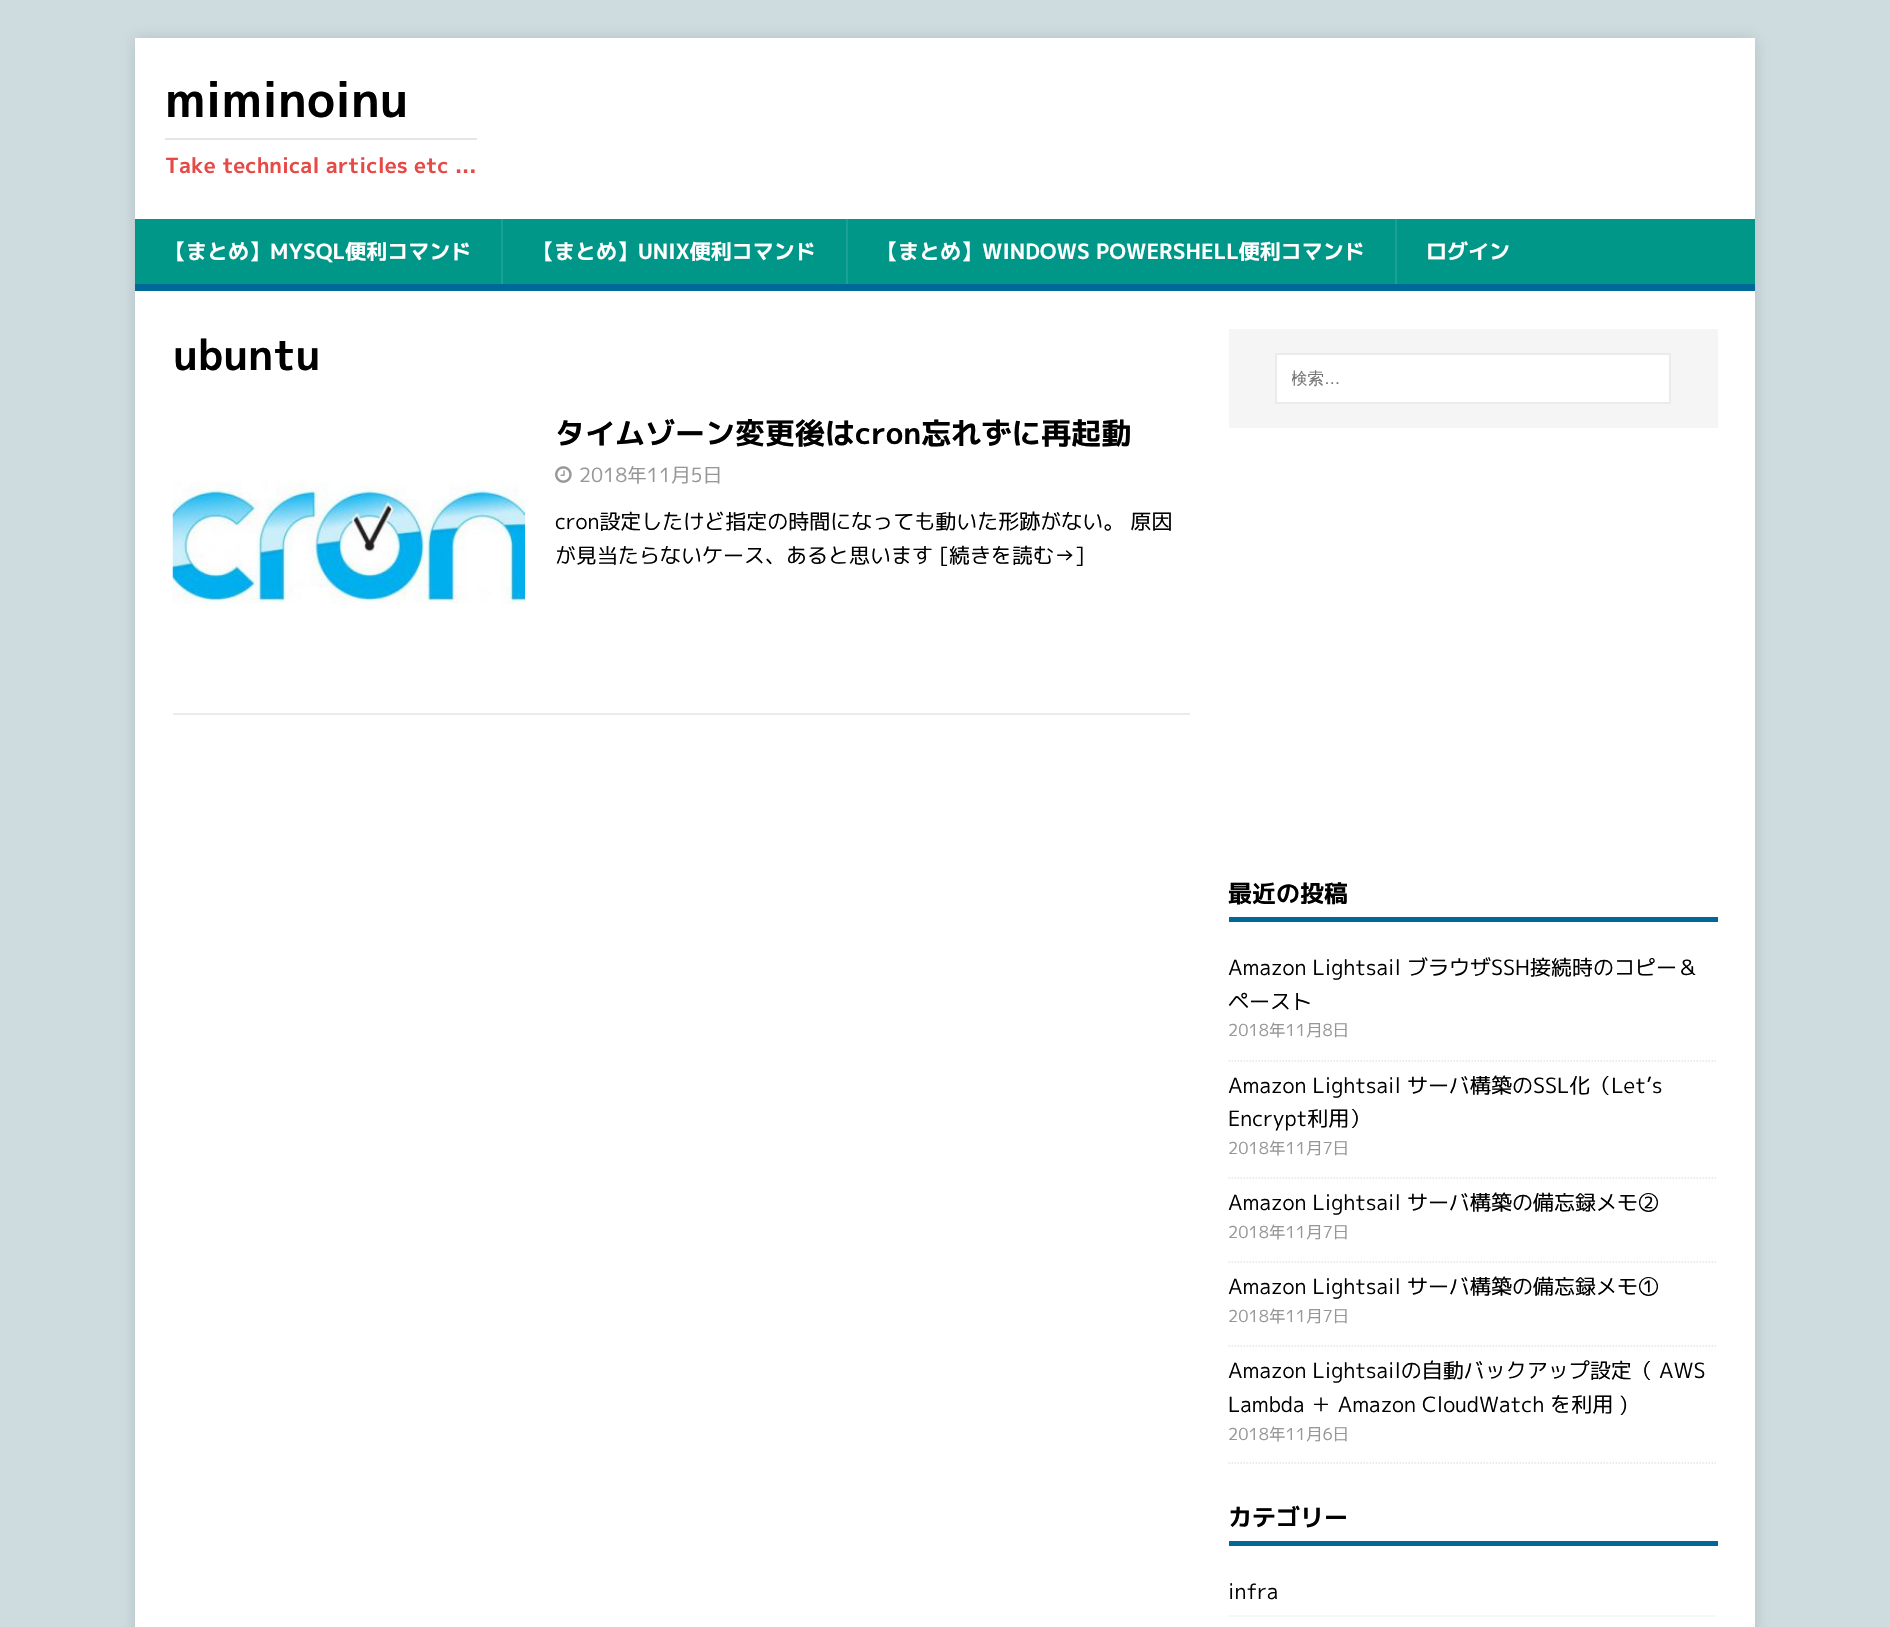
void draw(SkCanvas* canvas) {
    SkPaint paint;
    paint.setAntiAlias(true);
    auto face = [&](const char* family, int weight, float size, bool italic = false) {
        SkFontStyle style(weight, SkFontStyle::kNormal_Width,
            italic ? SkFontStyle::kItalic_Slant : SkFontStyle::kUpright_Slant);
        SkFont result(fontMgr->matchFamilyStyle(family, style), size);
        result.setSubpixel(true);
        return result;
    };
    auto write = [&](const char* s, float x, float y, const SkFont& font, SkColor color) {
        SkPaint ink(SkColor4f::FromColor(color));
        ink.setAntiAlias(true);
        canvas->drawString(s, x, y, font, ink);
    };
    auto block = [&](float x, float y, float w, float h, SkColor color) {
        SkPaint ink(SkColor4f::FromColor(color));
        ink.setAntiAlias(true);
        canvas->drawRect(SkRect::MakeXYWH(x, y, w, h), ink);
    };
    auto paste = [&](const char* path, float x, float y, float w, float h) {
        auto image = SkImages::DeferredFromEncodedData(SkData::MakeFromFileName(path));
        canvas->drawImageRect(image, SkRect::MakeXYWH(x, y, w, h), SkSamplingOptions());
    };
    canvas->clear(SkColorSetRGB(206, 220, 224));
    paint.setColor(SkColorSetARGB(43, 50, 50, 50));
    paint.setMaskFilter(SkMaskFilter::MakeBlur(kNormal_SkBlurStyle, 7.5f));
    canvas->drawRect(SkRect::MakeXYWH(135, 38, 1620, 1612), paint);
    paint.setMaskFilter(nullptr);
    block(135, 38, 1620, 181, SK_ColorWHITE);
    auto kFont1 = face("M PLUS 1p", 700, 48);
    write("miminoinu", 165, 117, kFont1, SK_ColorBLACK);
    block(165, 138, 312, 2, SkColorSetRGB(229, 229, 229));
    auto kFont2 = face("M PLUS 1p", 700, 21);
    write("Take technical articles etc ...", 165, 173, kFont2, SkColorSetRGB(230, 73, 70));
    block(135, 219, 1620, 65, SkColorSetRGB(0, 150, 136));
    block(135, 284, 1620, 7, SkColorSetRGB(0, 103, 153));
    write("【まとめ】MYSQL便利コマンド", 165, 259, kFont2, SK_ColorWHITE);
    block(501, 219, 2, 65, SkColorSetRGB(26, 161, 148));
    write("【まとめ】UNIX便利コマンド", 533, 259, kFont2, SK_ColorWHITE);
    block(846, 219, 2, 65, SkColorSetRGB(26, 161, 148));
    write("【まとめ】WINDOWS POWERSHELL便利コマンド", 877, 259, kFont2, SK_ColorWHITE);
    block(1395, 219, 2, 65, SkColorSetRGB(26, 161, 148));
    write("ログイン", 1426, 259, kFont2, SK_ColorWHITE);
    block(135, 291, 1620, 1336, SK_ColorWHITE);
    auto kFont3 = face("M PLUS 1p", 700, 42);
    write("ubuntu", 173, 370, kFont3, SK_ColorBLACK);
    block(173, 713, 1017, 2, SkColorSetRGB(235, 235, 235));
    paste("pic1.png", 172, 481, 353, 123);
    auto kFont4 = face("M PLUS 1p", 700, 30);
    write("タイムゾーン変更後はcron忘れずに再起動", 555, 444, kFont4, SK_ColorBLACK);
    paste("pic2.png", 555, 466, 17, 17);
    auto kFont5 = face("M PLUS 1p", 400, 19.5f);
    write("2018年11月5日", 579, 482, kFont5, SkColorSetRGB(151, 151, 151));
    auto kFont6 = face("M PLUS 1p", 400, 21);
    write("cron設定したけど指定の時間になっても動いた形跡がない。 原因", 555, 529, kFont6, SK_ColorBLACK);
    write("が見当たらないケース、あると思います [続きを読む→]", 555, 563, kFont6, SK_ColorBLACK);
    block(1229, 329, 489, 99, SkColorSetRGB(245, 245, 245));
    paint.setColor(SK_ColorWHITE);
    canvas->drawRect(SkRect::MakeXYWH(1276, 354, 394, 49), paint);
    paint.setStyle(SkPaint::kStroke_Style);
    paint.setStrokeWidth(2);
    paint.setColor(SkColorSetRGB(235, 235, 235));
    canvas->drawRect(SkRect::MakeXYWH(1276, 354, 394, 49), paint);
    canvas->save();
    canvas->clipRect(SkRect::MakeXYWH(1292, 368, 345, 22));
    auto kFont7 = face("WenQuanYi Zen Hei", 500, 16.5f);
    write("検索", 1291, 384, kFont7, SkColorSetRGB(117, 117, 117));
    canvas->restore();
    auto kFont8 = face("Liberation Sans", 400, 16.5f);
    write("…", 1324, 384, kFont8, SkColorSetRGB(117, 117, 117));
    block(1229, 917, 489, 5, SkColorSetRGB(0, 103, 153));
    auto kFont9 = face("M PLUS 1p", 700, 24);
    write("最近の投稿", 1228, 902, kFont9, SK_ColorBLACK);
    paint.setStrokeWidth(1.5f);
    paint.setColor(SkColorSetRGB(229, 229, 229));
    paint.setPathEffect(SkDashPathEffect::Make({{1.5f, 1.5f}}, 0));
    canvas->drawPath(SkPathBuilder().moveTo(1228.5f, 1061).lineTo(1717.5f, 1061).detach(), paint);
    paint.setPathEffect(nullptr);
    write("Amazon Lightsail ブラウザSSH接続時のコピー＆", 1228, 975, kFont6, SK_ColorBLACK);
    write("ペースト", 1228, 1009, kFont6, SK_ColorBLACK);
    auto kFont10 = face("M PLUS 1p", 400, 16.5f);
    write("2018年11月8日", 1228, 1036, kFont10, SkColorSetRGB(151, 151, 151));
    paint.setPathEffect(SkDashPathEffect::Make({{1.5f, 1.5f}}, 0));
    canvas->drawPath(SkPathBuilder().moveTo(1228.5f, 1178).lineTo(1717.5f, 1178).detach(), paint);
    paint.setPathEffect(nullptr);
    write("Amazon Lightsail サーバ構築のSSL化（Let’s", 1228, 1093, kFont6, SK_ColorBLACK);
    write("Encrypt利用）", 1228, 1126, kFont6, SK_ColorBLACK);
    write("2018年11月7日", 1228, 1154, kFont10, SkColorSetRGB(151, 151, 151));
    paint.setPathEffect(SkDashPathEffect::Make({{1.5f, 1.5f}}, 0));
    canvas->drawPath(SkPathBuilder().moveTo(1228.5f, 1262).lineTo(1717.5f, 1262).detach(), paint);
    paint.setPathEffect(nullptr);
    write("Amazon Lightsail サーバ構築の備忘録メモ②", 1228, 1210, kFont6, SK_ColorBLACK);
    write("2018年11月7日", 1228, 1238, kFont10, SkColorSetRGB(151, 151, 151));
    paint.setPathEffect(SkDashPathEffect::Make({{1.5f, 1.5f}}, 0));
    canvas->drawPath(SkPathBuilder().moveTo(1228.5f, 1346).lineTo(1717.5f, 1346).detach(), paint);
    paint.setPathEffect(nullptr);
    write("Amazon Lightsail サーバ構築の備忘録メモ①", 1228, 1294, kFont6, SK_ColorBLACK);
    write("2018年11月7日", 1228, 1322, kFont10, SkColorSetRGB(151, 151, 151));
    paint.setPathEffect(SkDashPathEffect::Make({{1.5f, 1.5f}}, 0));
    canvas->drawPath(SkPathBuilder().moveTo(1228.5f, 1463).lineTo(1717.5f, 1463).detach(), paint);
    paint.setPathEffect(nullptr);
    write("Amazon Lightsailの自動バックアップ設定（ AWS", 1228, 1378, kFont6, SK_ColorBLACK);
    write("Lambda ＋ Amazon CloudWatch を利用 )", 1228, 1412, kFont6, SK_ColorBLACK);
    write("2018年11月6日", 1228, 1440, kFont10, SkColorSetRGB(151, 151, 151));
    block(1229, 1541, 489, 5, SkColorSetRGB(0, 103, 153));
    write("カテゴリー", 1228, 1526, kFont9, SK_ColorBLACK);
    paint.setColor(SkColorSetRGB(235, 235, 235));
    paint.setPathEffect(SkDashPathEffect::Make({{1.5f, 1.5f}}, 0));
    canvas->drawPath(SkPathBuilder().moveTo(1228.5f, 1616).lineTo(1717.5f, 1616).detach(), paint);
    paint.setPathEffect(nullptr);
    write("infra", 1228, 1599, kFont6, SK_ColorBLACK);
}
